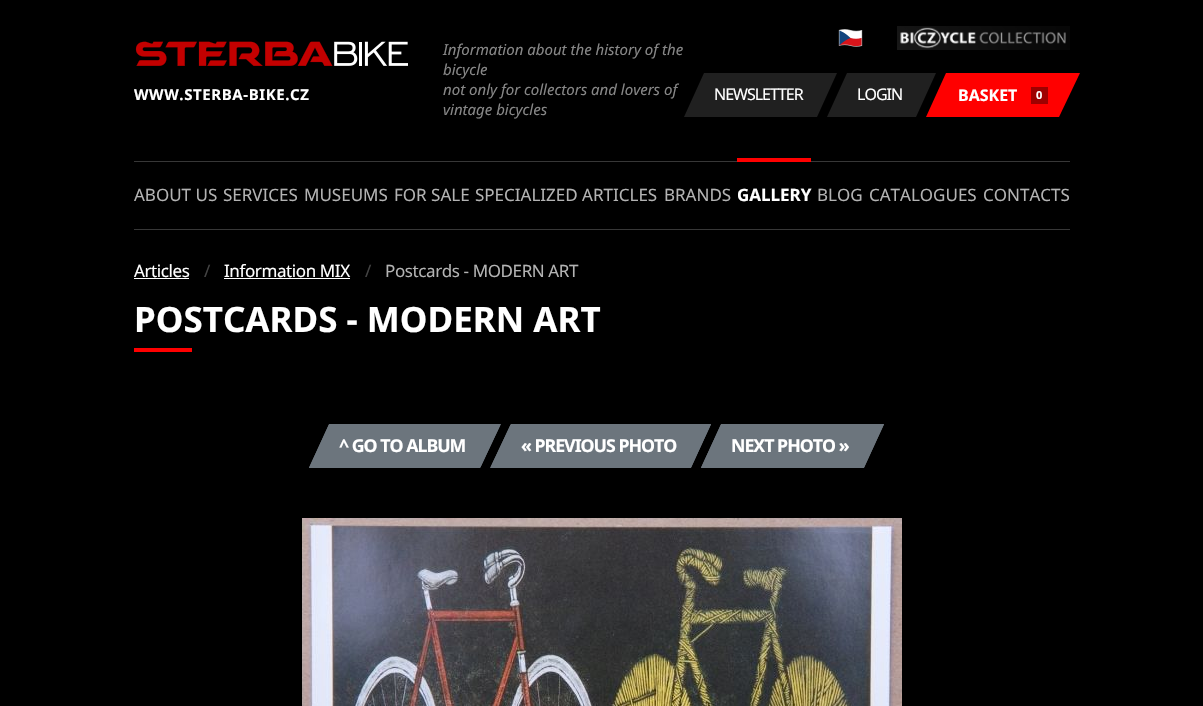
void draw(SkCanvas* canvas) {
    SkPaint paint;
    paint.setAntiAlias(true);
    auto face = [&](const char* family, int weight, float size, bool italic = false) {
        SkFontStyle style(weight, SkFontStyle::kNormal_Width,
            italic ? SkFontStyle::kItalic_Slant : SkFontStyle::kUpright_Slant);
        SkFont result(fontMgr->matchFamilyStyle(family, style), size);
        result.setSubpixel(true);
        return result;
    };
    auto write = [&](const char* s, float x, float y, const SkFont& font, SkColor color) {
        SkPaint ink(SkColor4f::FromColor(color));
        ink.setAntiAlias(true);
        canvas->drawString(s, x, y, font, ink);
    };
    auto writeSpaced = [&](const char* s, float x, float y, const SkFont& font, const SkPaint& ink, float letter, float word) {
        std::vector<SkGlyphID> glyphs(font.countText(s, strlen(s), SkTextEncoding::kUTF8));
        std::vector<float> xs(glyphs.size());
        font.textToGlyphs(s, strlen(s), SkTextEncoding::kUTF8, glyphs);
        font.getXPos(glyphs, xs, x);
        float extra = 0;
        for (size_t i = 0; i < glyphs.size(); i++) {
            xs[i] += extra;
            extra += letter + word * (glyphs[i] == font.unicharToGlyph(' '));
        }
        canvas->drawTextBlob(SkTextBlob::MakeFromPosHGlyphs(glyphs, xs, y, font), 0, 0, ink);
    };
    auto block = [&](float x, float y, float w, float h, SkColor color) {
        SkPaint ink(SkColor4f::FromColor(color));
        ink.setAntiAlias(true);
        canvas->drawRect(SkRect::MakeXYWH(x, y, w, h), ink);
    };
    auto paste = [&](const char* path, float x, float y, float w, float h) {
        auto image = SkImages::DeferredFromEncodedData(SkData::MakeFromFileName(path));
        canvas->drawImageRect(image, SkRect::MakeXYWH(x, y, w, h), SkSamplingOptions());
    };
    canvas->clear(SK_ColorBLACK);
    paste("pic1.png", 135, 41, 273, 25);
    auto kFont1 = face("Noto Sans", 700, 15);
    paint.setColor(SK_ColorWHITE);
    writeSpaced("WWW.STERBA-BIKE.CZ", 134, 100, kFont1, paint, 0.6f, 0);
    auto kFont2 = face("Noto Sans", 400, 15, true);
    write("Information about the history of the", 443, 55, kFont2, SkColorSetRGB(135, 135, 135));
    write("bicycle", 443, 75, kFont2, SkColorSetRGB(135, 135, 135));
    write("not only for collectors and lovers of", 443, 95, kFont2, SkColorSetRGB(135, 135, 135));
    write("vintage bicycles", 443, 115, kFont2, SkColorSetRGB(135, 135, 135));
    paste("pic2.png", 838, 29, 25, 18);
    paste("pic3.png", 897, 26, 173, 24);
    paint.setColor(SkColorSetRGB(32, 32, 32));
    canvas->drawPath(SkPathBuilder().moveTo(704, 73).lineTo(837, 73).lineTo(817, 117).lineTo(684, 117).close().detach(), paint);
    auto kFont3 = face("Noto Sans", 400, 16);
    paint.setColor(SK_ColorWHITE);
    writeSpaced("NEWSLETTER", 714, 100, kFont3, paint, -1, 0);
    paint.setColor(SkColorSetRGB(32, 32, 32));
    canvas->drawPath(SkPathBuilder().moveTo(847, 73).lineTo(936, 73).lineTo(916, 117).lineTo(827, 117).close().detach(), paint);
    paint.setColor(SK_ColorWHITE);
    writeSpaced("LOGIN", 857, 100, kFont3, paint, -1, 0);
    paint.setColor(SkColorSetRGB(255, 0, 0));
    canvas->drawPath(SkPathBuilder().moveTo(946, 73).lineTo(1080, 73).lineTo(1059, 117).lineTo(926, 117).close().detach(), paint);
    auto kFont4 = face("Noto Sans", 700, 16);
    write("BASKET", 958, 101, kFont4, SK_ColorWHITE);
    block(1031, 87, 17, 17, SkColorSetRGB(158, 0, 0));
    auto kFont5 = face("Noto Sans", 700, 11);
    write("0", 1036, 99, kFont5, SK_ColorWHITE);
    block(134, 161, 936, 1, SkColorSetRGB(55, 55, 55));
    block(134, 229, 936, 1, SkColorSetRGB(55, 55, 55));
    auto kFont6 = face("Noto Sans", 400, 17);
    write("ABOUT US", 134, 201, kFont6, SkColorSetRGB(179, 179, 179));
    write("SERVICES", 223, 201, kFont6, SkColorSetRGB(179, 179, 179));
    write("MUSEUMS", 304, 201, kFont6, SkColorSetRGB(179, 179, 179));
    write("FOR SALE", 394, 201, kFont6, SkColorSetRGB(179, 179, 179));
    write("SPECIALIZED ARTICLES", 475, 201, kFont6, SkColorSetRGB(179, 179, 179));
    write("BRANDS", 664, 201, kFont6, SkColorSetRGB(179, 179, 179));
    block(737, 158, 74, 4, SkColorSetRGB(255, 0, 0));
    auto kFont7 = face("Noto Sans", 700, 17);
    write("GALLERY", 737, 201, kFont7, SK_ColorWHITE);
    write("BLOG", 817, 201, kFont6, SkColorSetRGB(179, 179, 179));
    write("CATALOGUES", 869, 201, kFont6, SkColorSetRGB(179, 179, 179));
    write("CONTACTS", 983, 201, kFont6, SkColorSetRGB(179, 179, 179));
    paint.setColor(SK_ColorWHITE);
    writeSpaced("Articles", 134, 277, kFont6, paint, -0.4f, 0);
    block(134, 278, 55, 1, SK_ColorWHITE);
    paint.setColor(SkColorSetRGB(67, 67, 67));
    writeSpaced("/", 204, 277, kFont6, paint, -0.4f, 0);
    paint.setColor(SK_ColorWHITE);
    writeSpaced("Information MIX", 224, 277, kFont6, paint, -0.4f, 0);
    block(224, 278, 126, 1, SK_ColorWHITE);
    paint.setColor(SkColorSetRGB(67, 67, 67));
    writeSpaced("/", 365, 277, kFont6, paint, -0.4f, 0);
    paint.setColor(SkColorSetRGB(179, 179, 179));
    writeSpaced("Postcards - MODERN ART", 385, 277, kFont6, paint, -0.4f, 0);
    auto kFont8 = face("Noto Sans", 700, 35);
    write("POSTCARDS - MODERN ART", 134, 332, kFont8, SK_ColorWHITE);
    block(134, 348, 58, 4, SkColorSetRGB(255, 0, 0));
    paint.setColor(SkColorSetRGB(108, 117, 125));
    canvas->drawPath(SkPathBuilder().moveTo(329, 424).lineTo(501, 424).lineTo(480, 468).lineTo(309, 468).close().detach(), paint);
    paint.setStyle(SkPaint::kStroke_Style);
    paint.setStrokeWidth(1);
    canvas->drawPath(SkPathBuilder().moveTo(329.5f, 424.5f).lineTo(500, 424.5f).lineTo(480, 467.5f).lineTo(309.5f, 467.5f).close().detach(), paint);
    auto kFont9 = face("Noto Sans", 700, 17.75f);
    paint.setStyle(SkPaint::kFill_Style);
    paint.setColor(SK_ColorWHITE);
    writeSpaced("^ GO TO ALBUM", 339, 452, kFont9, paint, -1, 0);
    paint.setColor(SkColorSetRGB(108, 117, 125));
    canvas->drawPath(SkPathBuilder().moveTo(511, 424).lineTo(711, 424).lineTo(691, 468).lineTo(490, 468).close().detach(), paint);
    paint.setStyle(SkPaint::kStroke_Style);
    canvas->drawPath(SkPathBuilder().moveTo(511, 424.5f).lineTo(710.5f, 424.5f).lineTo(690.5f, 467.5f).lineTo(491, 467.5f).close().detach(), paint);
    paint.setStyle(SkPaint::kFill_Style);
    paint.setColor(SK_ColorWHITE);
    writeSpaced("« PREVIOUS PHOTO", 521, 452, kFont9, paint, -1, 0);
    paint.setColor(SkColorSetRGB(108, 117, 125));
    canvas->drawPath(SkPathBuilder().moveTo(721, 424).lineTo(884, 424).lineTo(864, 468).lineTo(701, 468).close().detach(), paint);
    paint.setStyle(SkPaint::kStroke_Style);
    canvas->drawPath(SkPathBuilder().moveTo(721.5f, 424.5f).lineTo(883.5f, 424.5f).lineTo(863.5f, 467.5f).lineTo(701.5f, 467.5f).close().detach(), paint);
    paint.setStyle(SkPaint::kFill_Style);
    paint.setColor(SK_ColorWHITE);
    writeSpaced("NEXT PHOTO »", 731, 452, kFont9, paint, -1, 0);
    paste("pic4.png", 302, 518, 600, 188);
}
